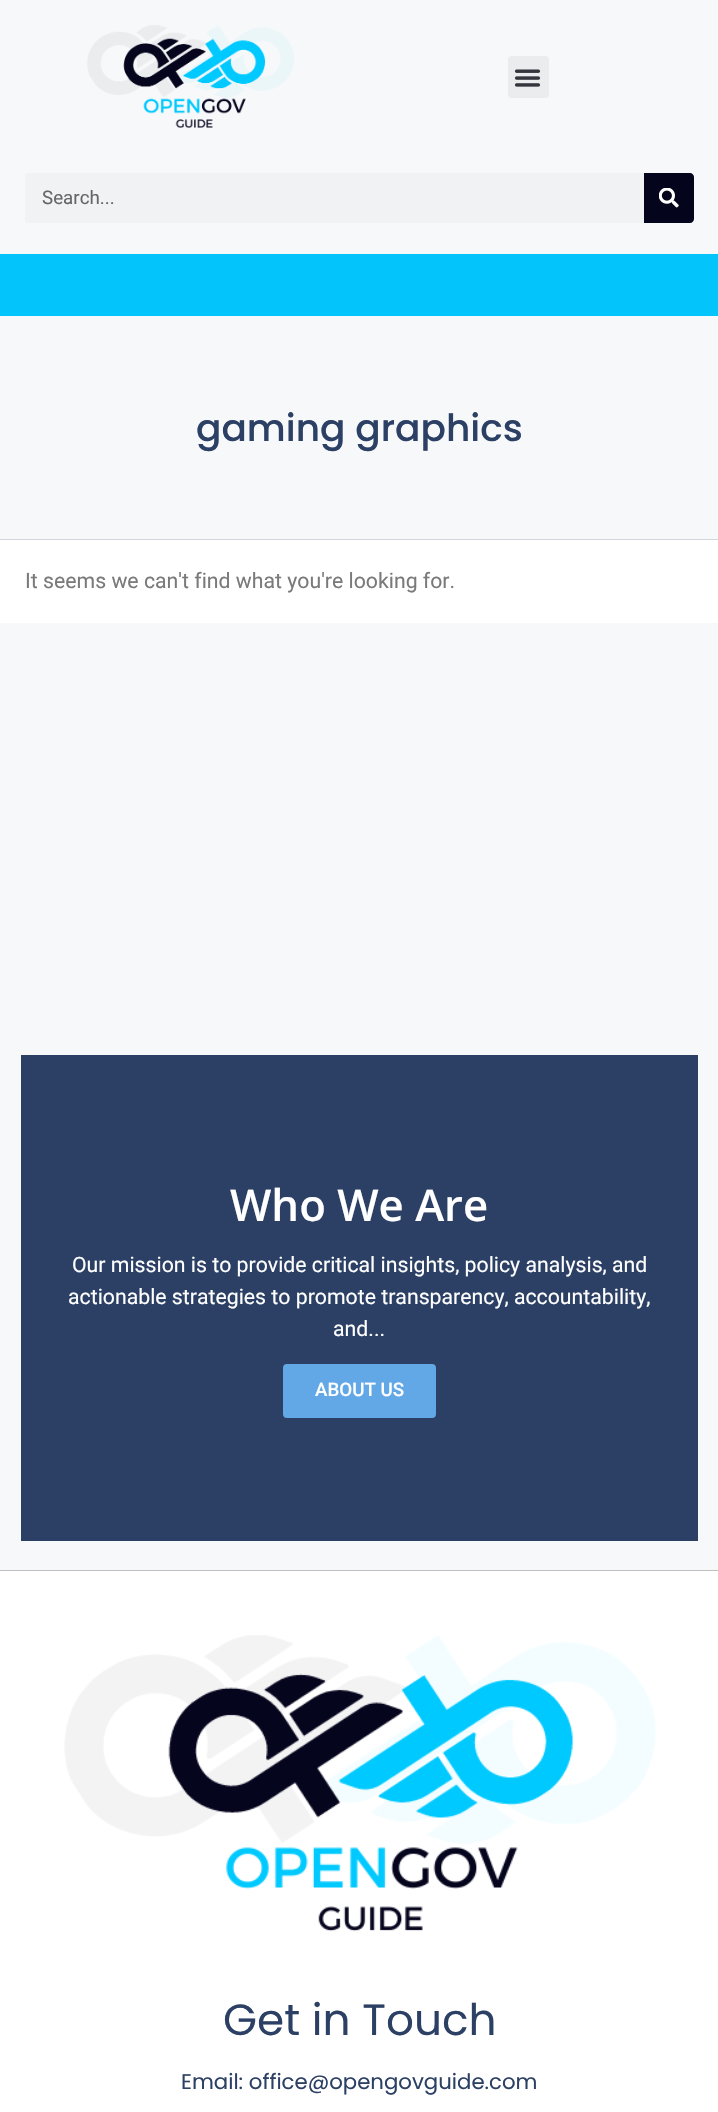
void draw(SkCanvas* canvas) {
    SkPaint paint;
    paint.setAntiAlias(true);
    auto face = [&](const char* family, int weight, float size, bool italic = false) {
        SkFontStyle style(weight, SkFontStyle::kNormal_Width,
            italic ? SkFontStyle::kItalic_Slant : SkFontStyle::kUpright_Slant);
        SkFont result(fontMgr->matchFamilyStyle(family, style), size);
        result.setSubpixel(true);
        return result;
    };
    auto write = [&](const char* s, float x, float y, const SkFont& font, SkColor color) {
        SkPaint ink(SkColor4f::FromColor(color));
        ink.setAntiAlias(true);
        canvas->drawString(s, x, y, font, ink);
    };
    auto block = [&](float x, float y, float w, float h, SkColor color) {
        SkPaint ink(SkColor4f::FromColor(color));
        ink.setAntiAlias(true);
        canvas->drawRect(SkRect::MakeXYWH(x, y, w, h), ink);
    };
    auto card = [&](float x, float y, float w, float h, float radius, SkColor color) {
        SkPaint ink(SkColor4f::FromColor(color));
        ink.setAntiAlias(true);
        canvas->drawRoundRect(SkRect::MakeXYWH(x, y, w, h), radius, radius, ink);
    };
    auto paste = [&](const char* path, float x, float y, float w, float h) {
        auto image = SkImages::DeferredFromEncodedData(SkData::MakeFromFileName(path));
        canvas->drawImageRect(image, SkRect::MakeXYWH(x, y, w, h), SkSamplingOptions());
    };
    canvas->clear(SkColorSetRGB(247, 248, 249));
    paste("pic1.png", 87, 25, 207, 103);
    card(508, 56, 41, 42, 4, SkColorSetRGB(235, 236, 237));
    paste("pic2.png", 514, 69, 27, 18);
    card(25, 173, 669, 50, 4, SkColorSetRGB(241, 242, 243));
    auto kFont1 = face("Roboto", 400, 18.75f);
    write("Search...", 42, 204, kFont1, SkColorSetRGB(101, 102, 102));
    paint.setColor(SkColorSetRGB(4, 4, 28));
    canvas->drawPath(SkPathBuilder().moveTo(644, 173).lineTo(690, 173).cubicTo(692, 173, 694, 175, 694, 177).lineTo(694, 219).cubicTo(694, 221, 692, 223, 690, 223).lineTo(644, 223).close().detach(), paint);
    paste("pic3.png", 659, 188, 20, 20);
    block(0, 254, 718, 62, SkColorSetRGB(4, 196, 252));
    block(0, 539, 718, 1, SkColorSetRGB(210, 215, 222));
    auto kFont2 = face("Poppins", 500, 37.5f);
    write("gaming graphics", 196, 441, kFont2, SkColorSetRGB(43, 64, 100));
    block(0, 540, 718, 83, SK_ColorWHITE);
    auto kFont3 = face("Roboto", 400, 21.25f);
    write("It seems we can't find what you're looking for.", 25, 588, kFont3, SkColorSetRGB(122, 122, 122));
    block(21, 1055, 677, 486, SkColorSetRGB(43, 64, 100));
    auto kFont4 = face("Open Sans", 600, 43.75f);
    write("Who We Are", 230, 1221, kFont4, SK_ColorWHITE);
    write("Our mission is to provide critical insights, policy analysis, and", 72, 1272, kFont3, SK_ColorWHITE);
    write("actionable strategies to promote transparency, accountability,", 68, 1304, kFont3, SK_ColorWHITE);
    write("and...", 333, 1336, kFont3, SK_ColorWHITE);
    paint.setColor(SkColorSetRGB(98, 168, 231));
    canvas->drawRoundRect(SkRect::MakeXYWH(284.5f, 1365.5f, 150, 51), 2.5f, 2.5f, paint);
    paint.setStyle(SkPaint::kStroke_Style);
    paint.setStrokeWidth(3);
    canvas->drawRoundRect(SkRect::MakeXYWH(284.5f, 1365.5f, 150, 51), 2.5f, 2.5f, paint);
    auto kFont5 = face("Roboto", 500, 18.75f);
    write("ABOUT US", 315, 1396, kFont5, SK_ColorWHITE);
    block(0, 1571, 718, 541, SK_ColorWHITE);
    block(0, 1570, 718, 1, SkColorSetRGB(191, 191, 191));
    paste("pic4.png", 64, 1635, 592, 297);
    auto kFont6 = face("Poppins", 400, 43.75f);
    write("Get in Touch", 223, 2035, kFont6, SkColorSetRGB(43, 64, 100));
    auto kFont7 = face("Poppins", 400, 21.25f);
    write("Email: office@opengovguide.com", 181, 2089, kFont7, SkColorSetRGB(43, 64, 100));
}
